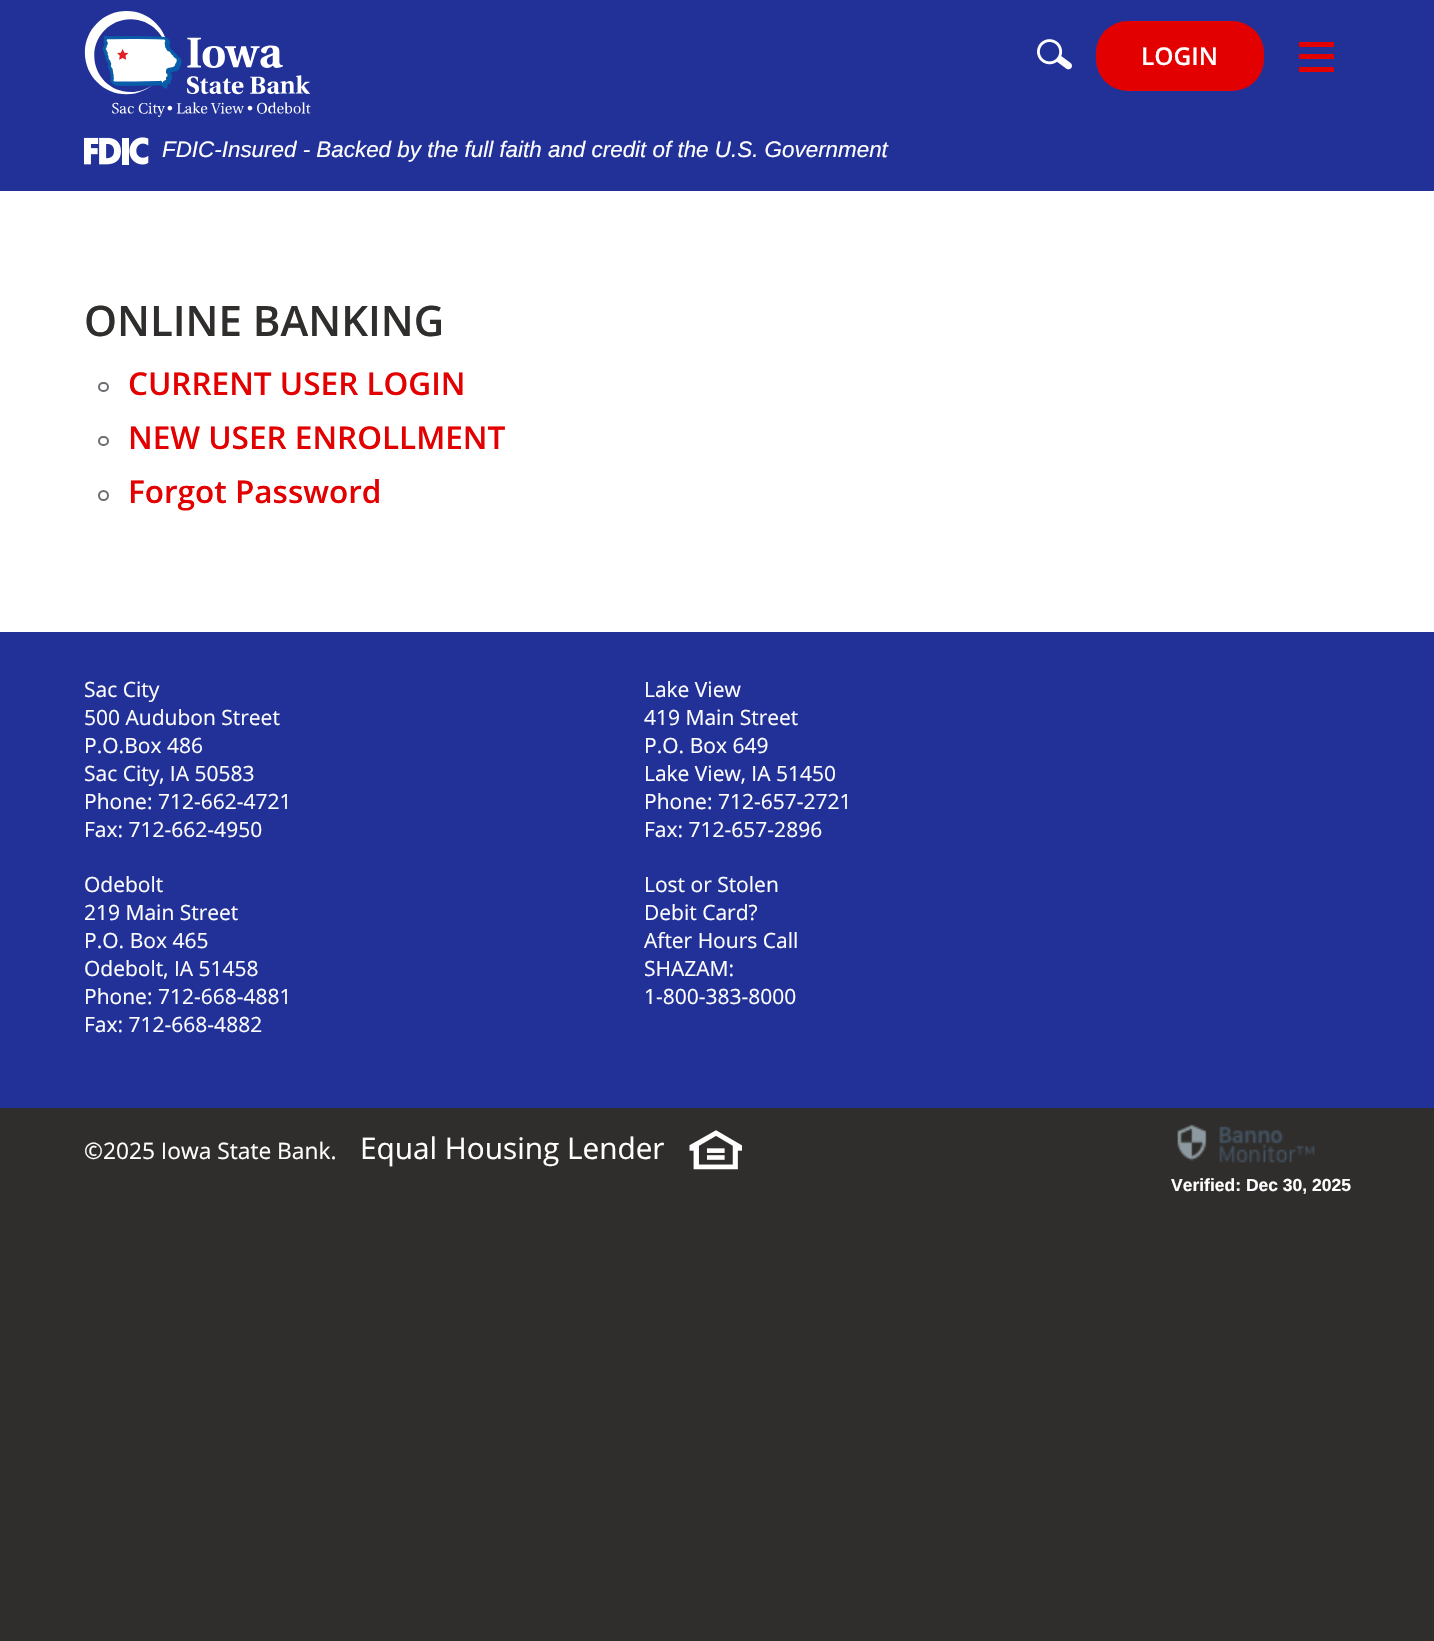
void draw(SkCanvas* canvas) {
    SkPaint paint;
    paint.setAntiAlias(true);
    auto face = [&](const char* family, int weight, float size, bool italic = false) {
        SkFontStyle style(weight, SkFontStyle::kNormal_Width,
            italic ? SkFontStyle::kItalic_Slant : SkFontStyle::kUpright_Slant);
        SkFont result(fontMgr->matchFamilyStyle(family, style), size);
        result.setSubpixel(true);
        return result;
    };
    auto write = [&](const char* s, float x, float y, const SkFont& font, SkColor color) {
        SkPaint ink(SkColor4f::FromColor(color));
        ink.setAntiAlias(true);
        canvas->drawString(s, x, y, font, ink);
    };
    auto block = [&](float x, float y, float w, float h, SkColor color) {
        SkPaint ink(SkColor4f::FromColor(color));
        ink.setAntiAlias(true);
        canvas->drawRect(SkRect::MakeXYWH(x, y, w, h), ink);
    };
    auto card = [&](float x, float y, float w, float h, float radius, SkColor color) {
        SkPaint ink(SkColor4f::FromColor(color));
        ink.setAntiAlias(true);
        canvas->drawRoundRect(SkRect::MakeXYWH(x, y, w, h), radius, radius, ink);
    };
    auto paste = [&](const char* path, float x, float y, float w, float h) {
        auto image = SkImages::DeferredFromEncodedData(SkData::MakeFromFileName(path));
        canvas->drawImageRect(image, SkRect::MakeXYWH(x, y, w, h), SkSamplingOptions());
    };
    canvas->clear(SkColorSetRGB(48, 46, 44));
    block(0, 191, 1434, 441, SK_ColorWHITE);
    block(0, 0, 1434, 191, SkColorSetRGB(34, 49, 152));
    paste("pic1.png", 84, 11, 227, 106);
    paste("pic2.png", 1037, 39, 35, 31);
    card(1096, 21, 168, 70, 32, SkColorSetRGB(226, 0, 1));
    auto kFont1 = face("Open Sans", 600, 24.5f);
    write("LOGIN", 1141, 65, kFont1, SK_ColorWHITE);
    block(1299, 54, 35, 5, SkColorSetRGB(226, 0, 1));
    block(1299, 42, 35, 5, SkColorSetRGB(226, 0, 1));
    block(1299, 67, 35, 5, SkColorSetRGB(226, 0, 1));
    paste("pic3.png", 84, 137, 65, 28);
    auto kFont2 = face("Liberation Sans", 400, 22.4f, true);
    write("FDIC-Insured - Backed by the full faith and credit of the U.S. Government", 162, 157, kFont2, SK_ColorWHITE);
    auto kFont3 = face("Open Sans", 600, 42);
    write("ONLINE BANKING", 84, 336, kFont3, SkColorSetRGB(48, 46, 44));
    paint.setStyle(SkPaint::kStroke_Style);
    paint.setStrokeWidth(2);
    paint.setColor(SkColorSetRGB(109, 110, 113));
    canvas->drawRoundRect(SkRect::MakeXYWH(99, 383, 9, 8), 4, 4, paint);
    auto kFont4 = face("Open Sans", 600, 31.5f);
    write("CURRENT USER LOGIN", 128, 395, kFont4, SkColorSetRGB(226, 0, 1));
    canvas->drawRoundRect(SkRect::MakeXYWH(99, 437, 9, 8), 4, 4, paint);
    write("NEW USER ENROLLMENT", 128, 449, kFont4, SkColorSetRGB(226, 0, 1));
    canvas->drawCircle(103.5f, 495.5f, 4.5f, paint);
    write("Forgot Password", 128, 503, kFont4, SkColorSetRGB(226, 0, 1));
    block(0, 632, 1434, 476, SkColorSetRGB(34, 49, 152));
    auto kFont5 = face("Open Sans", 400, 21);
    write("Sac City", 84, 697, kFont5, SK_ColorWHITE);
    write("500 Audubon Street", 84, 725, kFont5, SK_ColorWHITE);
    write("P.O.Box 486", 84, 753, kFont5, SK_ColorWHITE);
    write("Sac City, IA 50583", 84, 781, kFont5, SK_ColorWHITE);
    write("Phone: 712-662-4721", 84, 809, kFont5, SK_ColorWHITE);
    write("Fax: 712-662-4950", 84, 837, kFont5, SK_ColorWHITE);
    write("Lake View", 644, 697, kFont5, SK_ColorWHITE);
    write("419 Main Street", 644, 725, kFont5, SK_ColorWHITE);
    write("P.O. Box 649", 644, 753, kFont5, SK_ColorWHITE);
    write("Lake View, IA 51450", 644, 781, kFont5, SK_ColorWHITE);
    write("Phone: 712-657-2721", 644, 809, kFont5, SK_ColorWHITE);
    write("Fax: 712-657-2896", 644, 837, kFont5, SK_ColorWHITE);
    write("Odebolt", 84, 892, kFont5, SK_ColorWHITE);
    write("219 Main Street", 84, 920, kFont5, SK_ColorWHITE);
    write("P.O. Box 465", 84, 948, kFont5, SK_ColorWHITE);
    write("Odebolt, IA 51458", 84, 976, kFont5, SK_ColorWHITE);
    write("Phone: 712-668-4881", 84, 1004, kFont5, SK_ColorWHITE);
    write("Fax: 712-668-4882", 84, 1032, kFont5, SK_ColorWHITE);
    write("Lost or Stolen", 644, 892, kFont5, SK_ColorWHITE);
    write("Debit Card?", 644, 920, kFont5, SK_ColorWHITE);
    write("After Hours Call", 644, 948, kFont5, SK_ColorWHITE);
    write("SHAZAM:", 644, 976, kFont5, SK_ColorWHITE);
    write("1-800-383-8000", 644, 1004, kFont5, SK_ColorWHITE);
    auto kFont6 = face("Open Sans", 400, 22.75f);
    write("©2025 Iowa State Bank.", 84, 1159, kFont6, SK_ColorWHITE);
    auto kFont7 = face("Open Sans", 400, 29.75f);
    write("Equal Housing Lender", 360, 1159, kFont7, SK_ColorWHITE);
    paste("pic4.png", 689, 1130, 53, 40);
    paste("pic5.png", 1177, 1124, 138, 39);
    auto kFont8 = face("Liberation Sans", 700, 17.5f);
    write("Verified: Dec 30, 2025", 1171, 1191, kFont8, SK_ColorWHITE);
}
